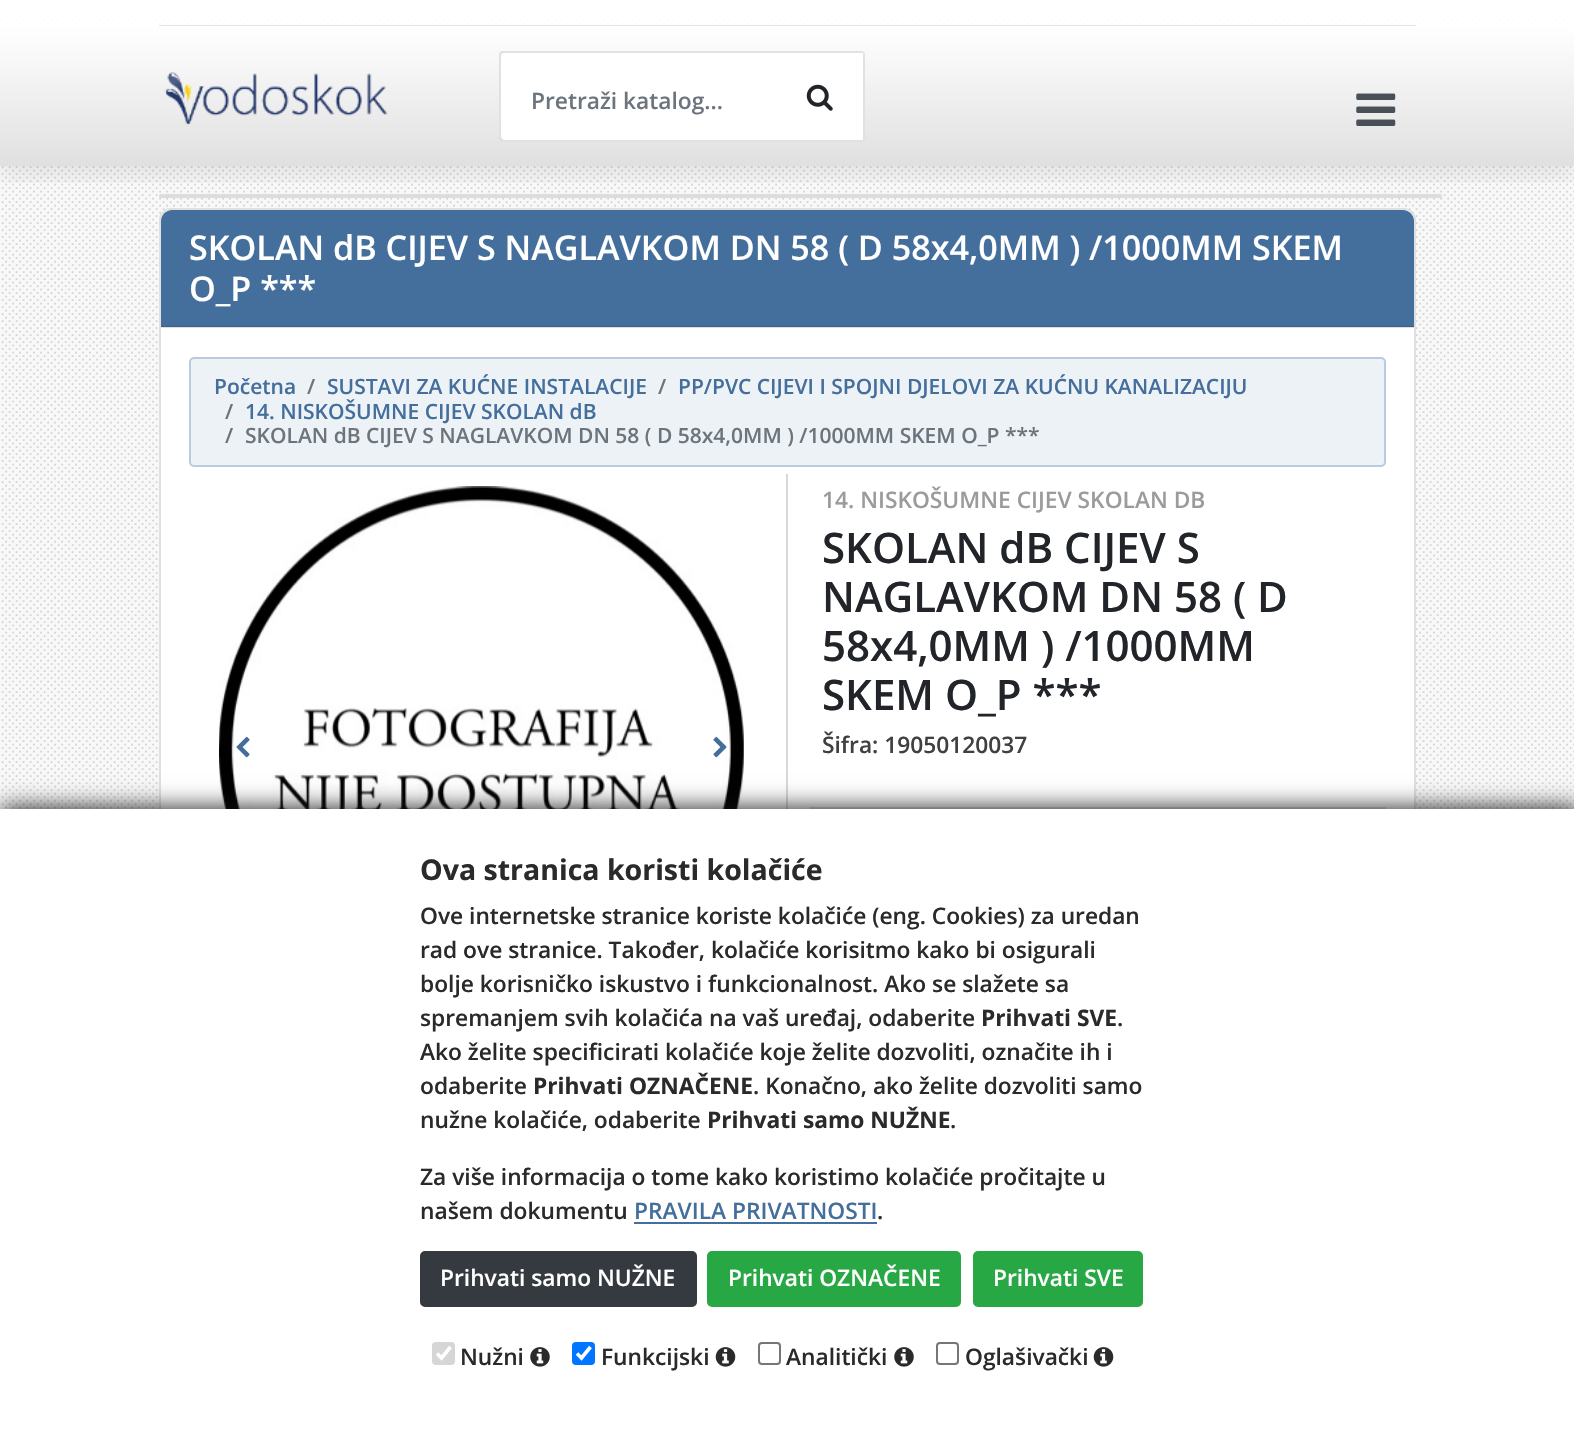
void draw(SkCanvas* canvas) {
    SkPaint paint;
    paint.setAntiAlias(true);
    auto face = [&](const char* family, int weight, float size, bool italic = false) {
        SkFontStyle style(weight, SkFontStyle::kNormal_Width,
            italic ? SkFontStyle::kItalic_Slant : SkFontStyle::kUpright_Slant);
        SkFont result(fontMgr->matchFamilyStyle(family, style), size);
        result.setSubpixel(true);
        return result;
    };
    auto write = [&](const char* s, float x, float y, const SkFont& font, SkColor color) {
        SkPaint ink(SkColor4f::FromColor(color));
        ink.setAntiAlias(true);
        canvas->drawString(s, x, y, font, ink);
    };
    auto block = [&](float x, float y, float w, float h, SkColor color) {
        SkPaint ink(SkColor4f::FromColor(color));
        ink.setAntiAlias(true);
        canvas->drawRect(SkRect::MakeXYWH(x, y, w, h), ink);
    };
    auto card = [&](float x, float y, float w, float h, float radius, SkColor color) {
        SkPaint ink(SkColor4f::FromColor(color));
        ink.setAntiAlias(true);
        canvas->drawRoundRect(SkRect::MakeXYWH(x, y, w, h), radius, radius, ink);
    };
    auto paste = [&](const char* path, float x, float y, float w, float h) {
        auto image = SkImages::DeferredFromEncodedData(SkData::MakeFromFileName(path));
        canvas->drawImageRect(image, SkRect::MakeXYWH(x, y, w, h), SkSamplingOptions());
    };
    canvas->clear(SkColorSetRGB(248, 248, 248));
    paste("pic1.png", 1, 1, 1573, 808);
    {
        const SkColor colors[] = {SK_ColorWHITE, SkColorSetRGB(224, 224, 224)};
        const float stops[] = {0, 1};
        const SkPoint ends[] = {{801, 194}, {801, 198}};
        paint.setShader(SkGradientShader::MakeLinear(ends, colors, stops, 2, SkTileMode::kClamp));
        paint.setAlpha(255);
    }
    canvas->drawRect(SkRect::MakeXYWH(159, 194, 1283, 4), paint);
    card(159, 194, 1283, 4, 2, SkColorSetRGB(221, 221, 221));
    card(159, 208, 1257, 1026, 12, SK_ColorWHITE);
    paint.setStyle(SkPaint::kStroke_Style);
    paint.setStrokeWidth(2);
    paint.setShader(nullptr);
    paint.setColor(SkColorSetARGB(31, 0, 0, 0));
    canvas->drawRoundRect(SkRect::MakeXYWH(160, 209, 1255, 1024), 11, 11, paint);
    paint.setStyle(SkPaint::kFill_Style);
    paint.setColor(SkColorSetRGB(68, 110, 155));
    canvas->drawPath(SkPathBuilder().moveTo(172, 210).lineTo(1403, 210).cubicTo(1409, 210, 1414, 215, 1414, 221).lineTo(1414, 327).lineTo(161, 327).lineTo(161, 221).cubicTo(161, 215, 166, 210, 172, 210).close().detach(), paint);
    canvas->save();
    canvas->clipRect(SkRect::MakeXYWH(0, 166, 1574, 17));
    paint.setColor(SkColorSetARGB(26, 0, 0, 0));
    paint.setMaskFilter(SkMaskFilter::MakeBlur(kNormal_SkBlurStyle, 13));
    canvas->drawRect(SkRect::MakeXYWH(0, -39, 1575, 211), paint);
    paint.setMaskFilter(nullptr);
    canvas->restore();
    block(0, 0, 1574, 26, SkColorSetARGB(237, 255, 255, 255));
    block(159, 25, 1257, 1, SkColorSetRGB(229, 229, 229));
    {
        const SkColor colors[] = {SK_ColorWHITE, SkColorSetRGB(224, 224, 224)};
        const float stops[] = {0, 1};
        const SkPoint ends[] = {{788, 26}, {788, 166}};
        paint.setShader(SkGradientShader::MakeLinear(ends, colors, stops, 2, SkTileMode::kClamp));
        paint.setAlpha(255);
    }
    canvas->drawRect(SkRect::MakeXYWH(0, 26, 1574, 140), paint);
    paste("pic2.png", 164, 72, 224, 53);
    paint.setStyle(SkPaint::kStroke_Style);
    paint.setShader(nullptr);
    paint.setColor(SkColorSetRGB(225, 225, 225));
    canvas->drawRoundRect(SkRect::MakeXYWH(500, 52, 364, 89), 3, 3, paint);
    paint.setStyle(SkPaint::kFill_Style);
    paint.setColor(SK_ColorWHITE);
    canvas->drawPath(SkPathBuilder().moveTo(506, 53).lineTo(863, 53).lineTo(863, 140).lineTo(506, 140).cubicTo(503, 140, 501, 138, 501, 135).lineTo(501, 58).cubicTo(501, 55, 503, 53, 506, 53).close().detach(), paint);
    auto kFont1 = face("Open Sans", 600, 22.75f);
    write("Pretraži katalog...", 531, 109, kFont1, SkColorSetRGB(108, 117, 125));
    paste("pic3.png", 806, 84, 27, 27);
    paste("pic4.png", 1356, 93, 40, 33);
    block(161, 326, 1253, 2, SkColorSetARGB(31, 0, 0, 0));
    auto kFont2 = face("Open Sans", 600, 34.1f);
    write("SKOLAN dB CIJEV S NAGLAVKOM DN 58 ( D 58x4,0MM ) /1000MM SKEM", 189, 260, kFont2, SK_ColorWHITE);
    write("O_P ***", 189, 301, kFont2, SK_ColorWHITE);
    paint.setColor(SkColorSetRGB(237, 242, 247));
    canvas->drawRoundRect(SkRect::MakeXYWH(190, 358, 1195, 108), 4, 4, paint);
    paint.setStyle(SkPaint::kStroke_Style);
    paint.setColor(SkColorSetRGB(184, 203, 224));
    canvas->drawRoundRect(SkRect::MakeXYWH(190, 358, 1195, 108), 4, 4, paint);
    auto kFont3 = face("Open Sans", 600, 21);
    write("Početna", 214, 394, kFont3, SkColorSetRGB(68, 110, 155));
    write("/", 307, 394, kFont3, SkColorSetRGB(108, 117, 125));
    write("SUSTAVI ZA KUĆNE INSTALACIJE", 327, 394, kFont3, SkColorSetRGB(68, 110, 155));
    write("/", 658, 394, kFont3, SkColorSetRGB(108, 117, 125));
    write("PP/PVC CIJEVI I SPOJNI DJELOVI ZA KUĆNU KANALIZACIJU", 678, 394, kFont3, SkColorSetRGB(68, 110, 155));
    write("/", 225, 419, kFont3, SkColorSetRGB(108, 117, 125));
    write("14. NISKOŠUMNE CIJEV SKOLAN dB", 245, 419, kFont3, SkColorSetRGB(68, 110, 155));
    write("/", 225, 443, kFont3, SkColorSetRGB(108, 117, 125));
    write("SKOLAN dB CIJEV S NAGLAVKOM DN 58 ( D 58x4,0MM ) /1000MM SKEM O_P ***", 245, 443, kFont3, SkColorSetRGB(108, 117, 125));
    block(786, 474, 2, 335, SkColorSetRGB(216, 216, 216));
    paste("pic5.png", 219, 486, 525, 323);
    paste("pic6.png", 236, 736, 14, 22);
    paste("pic7.png", 713, 736, 14, 22);
    write("14. NISKOŠUMNE CIJEV SKOLAN DB", 822, 508, kFont1, SkColorSetRGB(155, 155, 155));
    auto kFont4 = face("Open Sans", 600, 42);
    write("SKOLAN dB CIJEV S", 822, 563, kFont4, SkColorSetRGB(33, 37, 41));
    write("NAGLAVKOM DN 58 ( D", 822, 612, kFont4, SkColorSetRGB(33, 37, 41));
    write("58x4,0MM ) /1000MM", 822, 661, kFont4, SkColorSetRGB(33, 37, 41));
    write("SKEM O_P ***", 822, 710, kFont4, SkColorSetRGB(33, 37, 41));
    write("Šifra: 19050120037", 822, 753, kFont1, SkColorSetRGB(64, 64, 64));
    block(810, 807, 576, 2, SkColorSetRGB(222, 226, 230));
    paint.setStyle(SkPaint::kFill_Style);
    paint.setColor(SkColorSetRGB(18, 18, 18));
    paint.setMaskFilter(SkMaskFilter::MakeBlur(kNormal_SkBlurStyle, 12));
    canvas->drawRect(SkRect::MakeXYWH(0, 809, 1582, 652), paint);
    paint.setMaskFilter(nullptr);
    block(0, 809, 1574, 645, SK_ColorWHITE);
    auto kFont5 = face("Open Sans", 700, 28.5f);
    write("Ova stranica koristi kolačiće", 420, 880, kFont5, SkColorSetRGB(42, 42, 42));
    write("Ove internetske stranice koriste kolačiće (eng. Cookies) za uredan", 420, 924, kFont1, SkColorSetRGB(42, 42, 42));
    write("rad ove stranice. Također, kolačiće korisitmo kako bi osigurali", 420, 958, kFont1, SkColorSetRGB(42, 42, 42));
    write("bolje korisničko iskustvo i funkcionalnost. Ako se slažete sa", 420, 992, kFont1, SkColorSetRGB(42, 42, 42));
    write("spremanjem svih kolačića na vaš uređaj, odaberite", 420, 1026, kFont1, SkColorSetRGB(42, 42, 42));
    auto kFont6 = face("Open Sans", 700, 22.75f);
    write("Prihvati SVE", 981, 1026, kFont6, SkColorSetRGB(42, 42, 42));
    write(".", 1117, 1026, kFont1, SkColorSetRGB(42, 42, 42));
    write("Ako želite specificirati kolačiće koje želite dozvoliti, označite ih i", 420, 1060, kFont1, SkColorSetRGB(42, 42, 42));
    write("odaberite", 420, 1094, kFont1, SkColorSetRGB(42, 42, 42));
    write("Prihvati OZNAČENE", 533, 1094, kFont6, SkColorSetRGB(42, 42, 42));
    write(". Konačno, ako želite dozvoliti samo", 753, 1094, kFont1, SkColorSetRGB(42, 42, 42));
    write("nužne kolačiće, odaberite", 420, 1128, kFont1, SkColorSetRGB(42, 42, 42));
    write("Prihvati samo NUŽNE", 707, 1128, kFont6, SkColorSetRGB(42, 42, 42));
    write(".", 950, 1128, kFont1, SkColorSetRGB(42, 42, 42));
    write("Za više informacija o tome kako koristimo kolačiće pročitajte u", 420, 1185, kFont1, SkColorSetRGB(42, 42, 42));
    write("našem dokumentu", 420, 1219, kFont1, SkColorSetRGB(42, 42, 42));
    write("PRAVILA PRIVATNOSTI", 634, 1219, kFont1, SkColorSetRGB(68, 110, 155));
    block(634, 1222, 243, 2, SkColorSetRGB(68, 110, 155));
    write(".", 877, 1219, kFont1, SkColorSetRGB(42, 42, 42));
    paint.setColor(SkColorSetRGB(52, 58, 64));
    canvas->drawRoundRect(SkRect::MakeXYWH(421, 1252, 275, 54), 4, 4, paint);
    paint.setStyle(SkPaint::kStroke_Style);
    canvas->drawRoundRect(SkRect::MakeXYWH(421, 1252, 275, 54), 4, 4, paint);
    write("Prihvati samo NUŽNE", 440, 1286, kFont1, SK_ColorWHITE);
    paint.setStyle(SkPaint::kFill_Style);
    paint.setColor(SkColorSetRGB(40, 167, 69));
    canvas->drawRoundRect(SkRect::MakeXYWH(708, 1252, 252, 54), 4, 4, paint);
    paint.setStyle(SkPaint::kStroke_Style);
    canvas->drawRoundRect(SkRect::MakeXYWH(708, 1252, 252, 54), 4, 4, paint);
    write("Prihvati OZNAČENE", 728, 1286, kFont1, SK_ColorWHITE);
    paint.setStyle(SkPaint::kFill_Style);
    canvas->drawRoundRect(SkRect::MakeXYWH(974, 1252, 168, 54), 4, 4, paint);
    paint.setStyle(SkPaint::kStroke_Style);
    canvas->drawRoundRect(SkRect::MakeXYWH(974, 1252, 168, 54), 4, 4, paint);
    write("Prihvati SVE", 993, 1286, kFont1, SK_ColorWHITE);
    card(432, 1342, 23, 23, 4, SkColorSetRGB(214, 214, 214));
    paint.setStrokeWidth(3.6f);
    paint.setColor(SK_ColorWHITE);
    canvas->drawPath(SkPathBuilder().moveTo(437, 1353.5f).lineTo(441.5f, 1358).lineTo(450.5f, 1347).detach(), paint);
    write("Nužni", 460, 1365, kFont1, SkColorSetRGB(42, 42, 42));
    paste("pic8.png", 530, 1347, 20, 20);
    card(572, 1342, 23, 23, 4, SkColorSetRGB(0, 117, 255));
    canvas->drawPath(SkPathBuilder().moveTo(577, 1353.5f).lineTo(581.5f, 1358).lineTo(590.5f, 1347).detach(), paint);
    write("Funkcijski", 601, 1365, kFont1, SkColorSetRGB(42, 42, 42));
    paste("pic9.png", 715, 1347, 21, 20);
    paint.setStrokeWidth(2);
    paint.setColor(SkColorSetRGB(118, 118, 118));
    canvas->drawRoundRect(SkRect::MakeXYWH(759, 1343, 21, 21), 3, 3, paint);
    write("Analitički", 786, 1365, kFont1, SkColorSetRGB(42, 42, 42));
    paste("pic8.png", 894, 1347, 20, 20);
    canvas->drawRoundRect(SkRect::MakeXYWH(937, 1343, 21, 21), 3, 3, paint);
    write("Oglašivački", 965, 1365, kFont1, SkColorSetRGB(42, 42, 42));
    paste("pic9.png", 1093, 1347, 21, 20);
}
